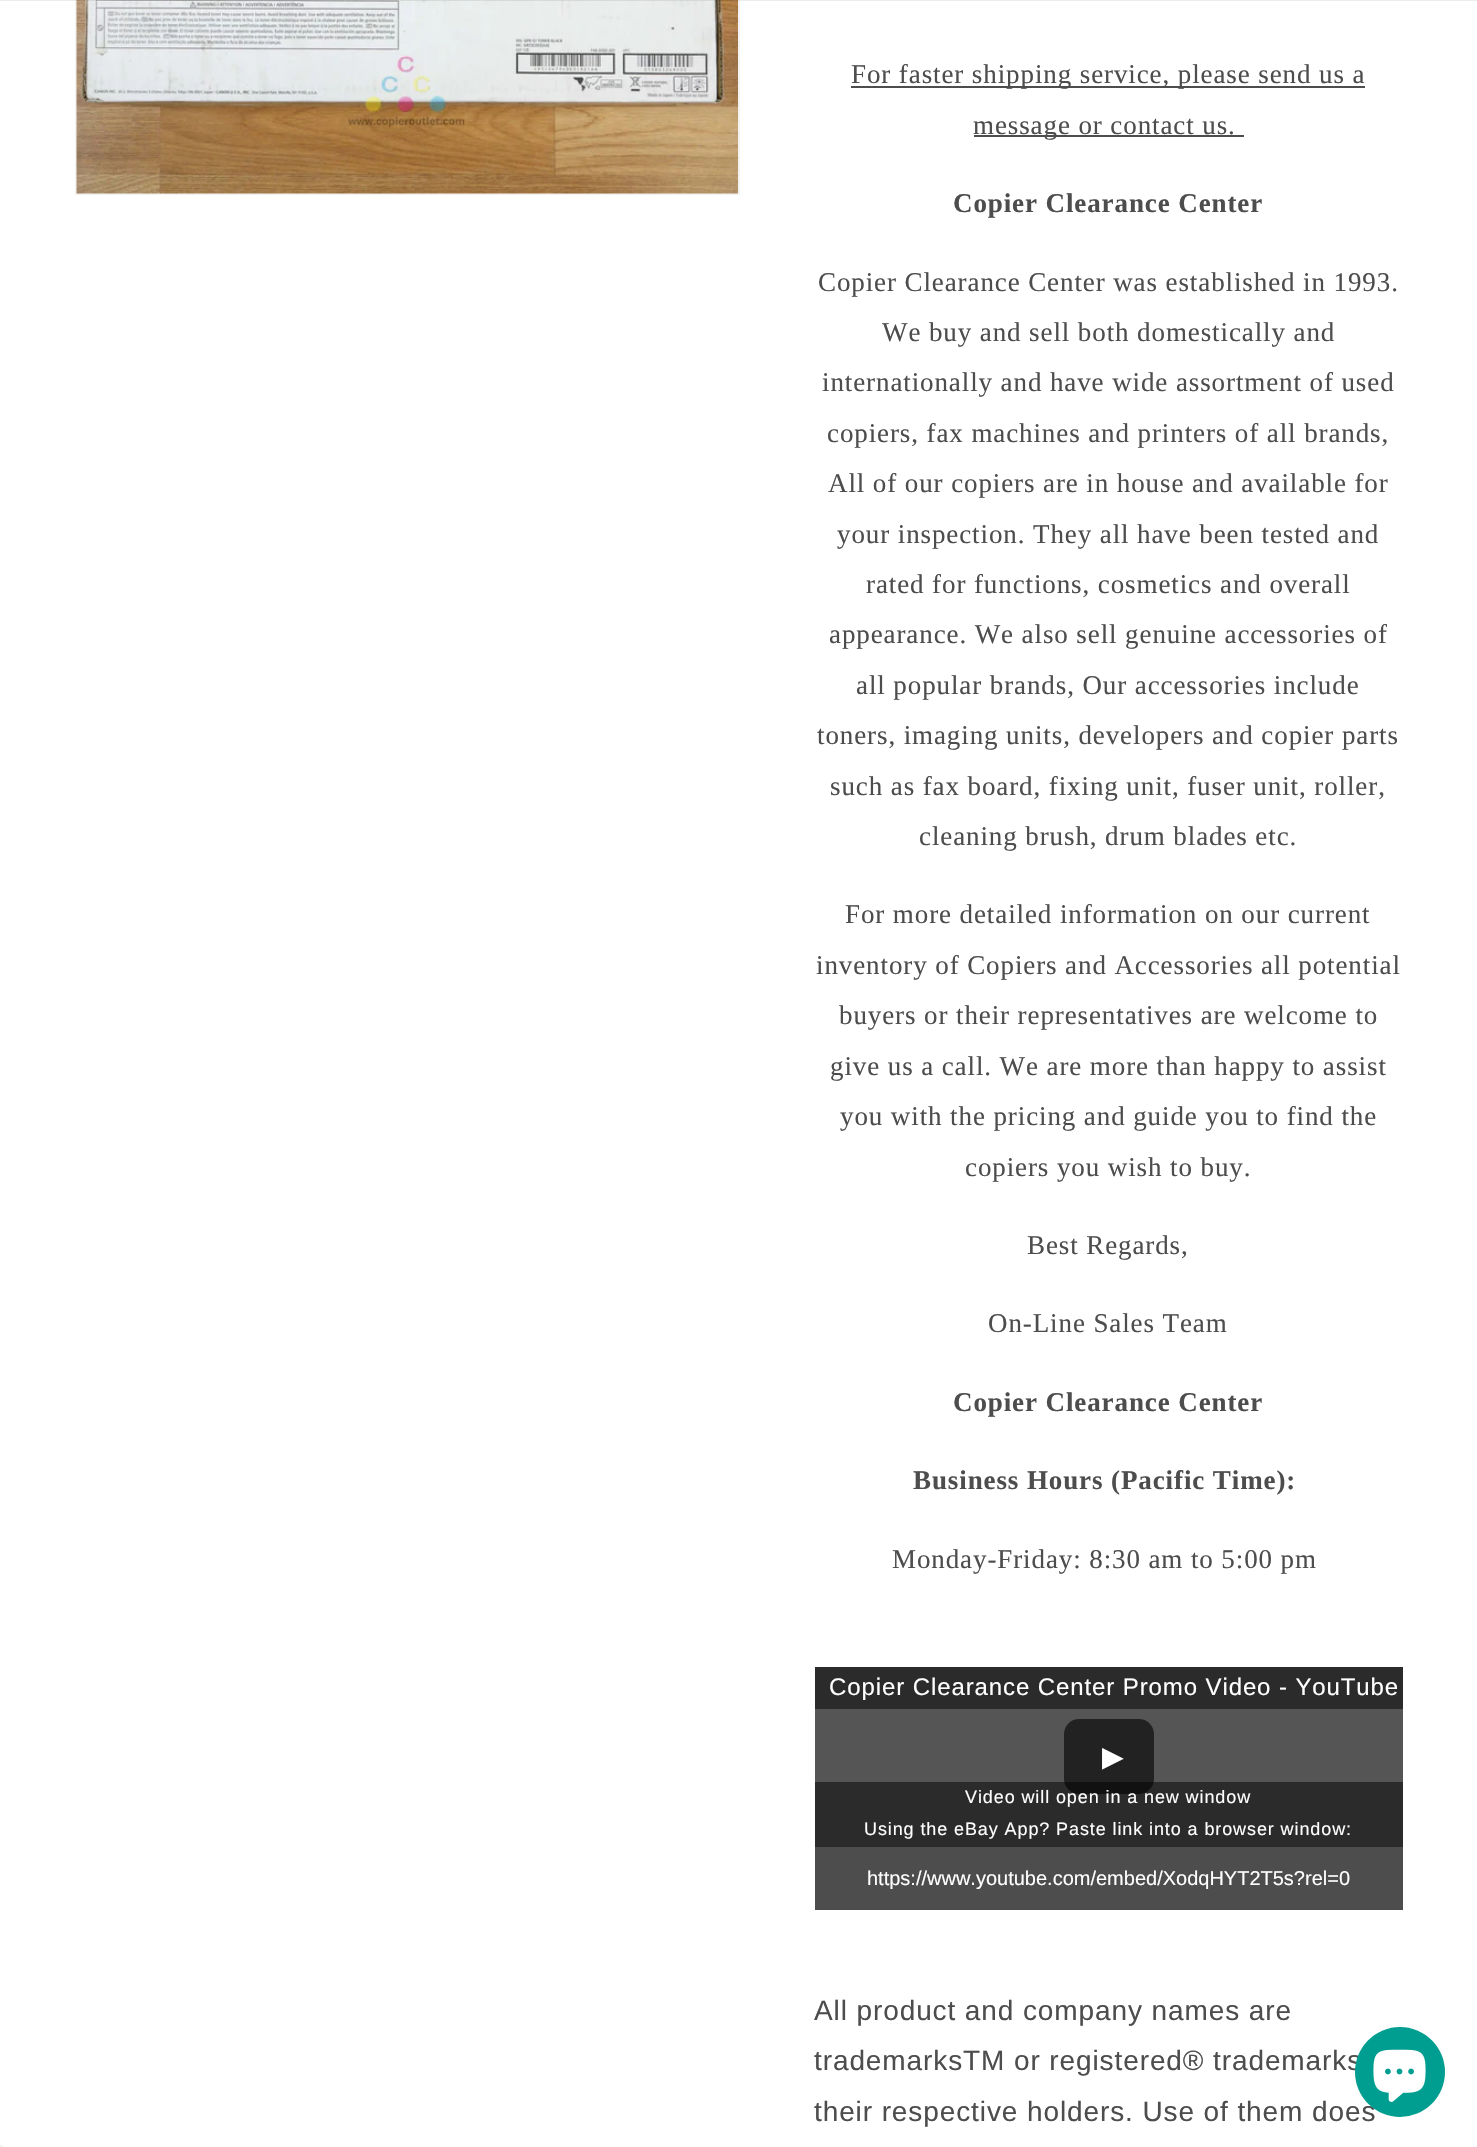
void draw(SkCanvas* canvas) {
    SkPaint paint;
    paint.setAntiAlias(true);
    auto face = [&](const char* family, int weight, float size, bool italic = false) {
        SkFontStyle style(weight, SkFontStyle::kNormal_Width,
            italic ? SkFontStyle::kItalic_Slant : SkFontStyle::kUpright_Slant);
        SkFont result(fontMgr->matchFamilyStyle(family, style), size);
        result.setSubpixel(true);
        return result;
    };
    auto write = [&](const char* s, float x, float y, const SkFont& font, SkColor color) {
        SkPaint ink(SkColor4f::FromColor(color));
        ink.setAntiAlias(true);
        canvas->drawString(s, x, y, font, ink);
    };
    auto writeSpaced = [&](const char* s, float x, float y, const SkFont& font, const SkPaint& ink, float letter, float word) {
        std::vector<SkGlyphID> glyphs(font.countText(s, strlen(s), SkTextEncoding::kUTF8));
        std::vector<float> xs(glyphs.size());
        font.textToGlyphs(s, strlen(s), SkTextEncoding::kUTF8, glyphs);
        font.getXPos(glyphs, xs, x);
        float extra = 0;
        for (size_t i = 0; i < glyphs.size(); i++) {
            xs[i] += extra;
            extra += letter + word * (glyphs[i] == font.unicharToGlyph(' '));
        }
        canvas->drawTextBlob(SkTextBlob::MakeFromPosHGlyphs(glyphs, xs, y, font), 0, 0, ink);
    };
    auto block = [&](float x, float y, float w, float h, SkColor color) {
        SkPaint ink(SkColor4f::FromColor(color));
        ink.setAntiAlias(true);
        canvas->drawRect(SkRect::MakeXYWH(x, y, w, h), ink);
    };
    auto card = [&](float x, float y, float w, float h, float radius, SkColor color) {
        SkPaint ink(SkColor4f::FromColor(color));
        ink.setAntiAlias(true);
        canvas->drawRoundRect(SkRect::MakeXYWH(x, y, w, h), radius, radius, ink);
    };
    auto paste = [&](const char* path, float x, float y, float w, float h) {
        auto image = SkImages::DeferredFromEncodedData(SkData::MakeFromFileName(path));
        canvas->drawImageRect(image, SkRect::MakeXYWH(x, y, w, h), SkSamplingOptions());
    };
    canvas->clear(SK_ColorWHITE);
    paint.setStyle(SkPaint::kStroke_Style);
    paint.setStrokeWidth(2);
    paint.setColor(SkColorSetRGB(243, 243, 243));
    canvas->drawRect(SkRect::MakeXYWH(76, -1, 663, 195), paint);
    paste("pic1.png", 76, 0, 662, 194);
    block(0, 0, 1477, 1, SkColorSetARGB(20, 18, 18, 18));
    block(851, 86, 514, 2, SkColorSetRGB(77, 77, 77));
    auto kFont1 = face("Liberation Serif", 400, 27);
    paint.setStyle(SkPaint::kFill_Style);
    paint.setColor(SkColorSetRGB(77, 77, 77));
    writeSpaced("For faster shipping service, please send us a", 851, 83, kFont1, paint, 0.9f, 0);
    block(974, 135, 270, 2, SkColorSetRGB(77, 77, 77));
    writeSpaced("message or contact us.", 973, 134, kFont1, paint, 0.9f, 0);
    auto kFont2 = face("Liberation Serif", 700, 27);
    writeSpaced("Copier Clearance Center", 953, 212, kFont2, paint, 0.9f, 0);
    writeSpaced("Copier Clearance Center was established in 1993.", 818, 291, kFont1, paint, 0.9f, 0);
    writeSpaced("We buy and sell both domestically and", 882, 341, kFont1, paint, 0.9f, 0);
    writeSpaced("internationally and have wide assortment of used", 822, 391, kFont1, paint, 0.9f, 0);
    writeSpaced("copiers, fax machines and printers of all brands,", 827, 442, kFont1, paint, 0.9f, 0);
    writeSpaced("All of our copiers are in house and available for", 828, 492, kFont1, paint, 0.9f, 0);
    writeSpaced("your inspection. They all have been tested and", 837, 543, kFont1, paint, 0.9f, 0);
    writeSpaced("rated for functions, cosmetics and overall", 866, 593, kFont1, paint, 0.9f, 0);
    writeSpaced("appearance. We also sell genuine accessories of", 829, 643, kFont1, paint, 0.9f, 0);
    writeSpaced("all popular brands, Our accessories include", 856, 694, kFont1, paint, 0.9f, 0);
    writeSpaced("toners, imaging units, developers and copier parts", 817, 744, kFont1, paint, 0.9f, 0);
    writeSpaced("such as fax board, fixing unit, fuser unit, roller,", 830, 795, kFont1, paint, 0.9f, 0);
    writeSpaced("cleaning brush, drum blades etc.", 919, 845, kFont1, paint, 0.9f, 0);
    writeSpaced("For more detailed information on our current", 845, 923, kFont1, paint, 0.9f, 0);
    writeSpaced("inventory of Copiers and Accessories all potential", 816, 974, kFont1, paint, 0.9f, 0);
    writeSpaced("buyers or their representatives are welcome to", 839, 1024, kFont1, paint, 0.9f, 0);
    writeSpaced("give us a call. We are more than happy to assist", 830, 1075, kFont1, paint, 0.9f, 0);
    writeSpaced("you with the pricing and guide you to find the", 840, 1125, kFont1, paint, 0.9f, 0);
    writeSpaced("copiers you wish to buy.", 965, 1176, kFont1, paint, 0.9f, 0);
    writeSpaced("Best Regards,", 1027, 1254, kFont1, paint, 0.9f, 0);
    writeSpaced("On-Line Sales Team", 988, 1332, kFont1, paint, 0.9f, 0);
    writeSpaced("Copier Clearance Center", 953, 1411, kFont2, paint, 0.9f, 0);
    writeSpaced("Business Hours (Pacific Time):", 913, 1489, kFont2, paint, 0.9f, 0);
    writeSpaced("Monday-Friday: 8:30 am to 5:00 pm", 892, 1568, kFont1, paint, 0.9f, 0);
    block(815, 1709, 588, 138, SkColorSetRGB(85, 85, 85));
    block(815, 1667, 588, 42, SkColorSetRGB(43, 43, 43));
    auto kFont3 = face("Liberation Sans", 400, 24);
    paint.setColor(SK_ColorWHITE);
    writeSpaced("Copier Clearance Center Promo Video - YouTube", 829, 1695, kFont3, paint, 0.9f, 0);
    card(1064, 1719, 90, 75, 15, SkColorSetRGB(34, 34, 34));
    auto kFont4 = face("Liberation Sans", 400, 36);
    writeSpaced("►", 1095, 1769, kFont4, paint, 0.9f, 0);
    block(815, 1782, 588, 65, SkColorSetARGB(128, 0, 0, 0));
    auto kFont5 = face("Liberation Sans", 400, 18);
    writeSpaced("Video will open in a new window", 965, 1803, kFont5, paint, 0.9f, 0);
    writeSpaced("Using the eBay App? Paste link into a browser window:", 864, 1835, kFont5, paint, 0.9f, 0);
    block(815, 1847, 588, 63, SkColorSetRGB(77, 77, 77));
    canvas->save();
    canvas->clipRect(SkRect::MakeXYWH(818, 1866, 580, 23));
    auto kFont6 = face("Liberation Sans", 400, 20);
    write("https://www.youtube.com/embed/XodqHYT2T5s?rel=0", 867, 1885, kFont6, SK_ColorWHITE);
    canvas->restore();
    auto kFont7 = face("Liberation Sans", 400, 28);
    paint.setColor(SkColorSetRGB(77, 77, 77));
    writeSpaced("All product and company names are", 814, 2020, kFont7, paint, 0.9f, 0);
    writeSpaced("trademarksTM or registered® trademarks", 814, 2070, kFont7, paint, 0.9f, 0);
    writeSpaced("their respective holders. Use of them does", 814, 2121, kFont7, paint, 0.9f, 0);
    paint.setColor(SkColorSetRGB(0, 158, 144));
    canvas->drawCircle(1400, 2072, 45, paint);
    paste("pic2.png", 1373, 2049, 53, 53);
    block(0, 2145, 3, 2, SkColorSetRGB(245, 245, 245));
}
